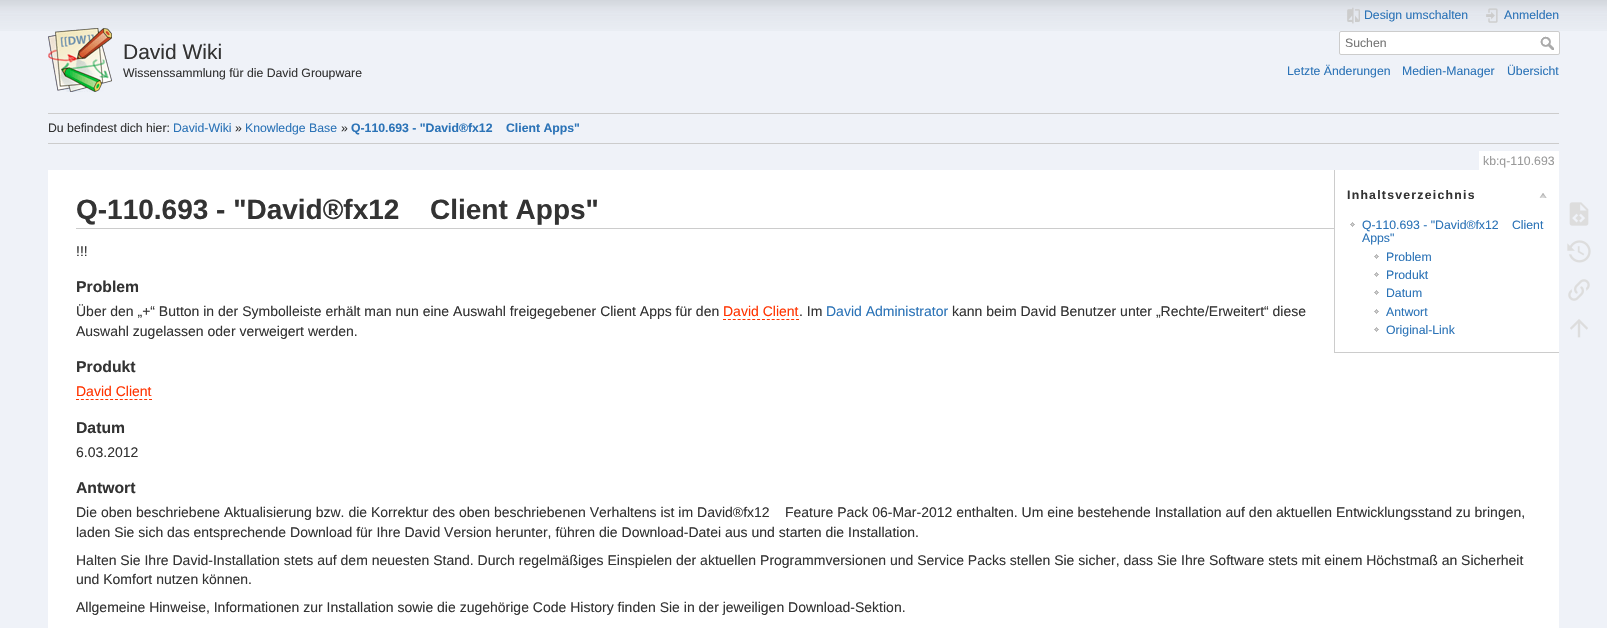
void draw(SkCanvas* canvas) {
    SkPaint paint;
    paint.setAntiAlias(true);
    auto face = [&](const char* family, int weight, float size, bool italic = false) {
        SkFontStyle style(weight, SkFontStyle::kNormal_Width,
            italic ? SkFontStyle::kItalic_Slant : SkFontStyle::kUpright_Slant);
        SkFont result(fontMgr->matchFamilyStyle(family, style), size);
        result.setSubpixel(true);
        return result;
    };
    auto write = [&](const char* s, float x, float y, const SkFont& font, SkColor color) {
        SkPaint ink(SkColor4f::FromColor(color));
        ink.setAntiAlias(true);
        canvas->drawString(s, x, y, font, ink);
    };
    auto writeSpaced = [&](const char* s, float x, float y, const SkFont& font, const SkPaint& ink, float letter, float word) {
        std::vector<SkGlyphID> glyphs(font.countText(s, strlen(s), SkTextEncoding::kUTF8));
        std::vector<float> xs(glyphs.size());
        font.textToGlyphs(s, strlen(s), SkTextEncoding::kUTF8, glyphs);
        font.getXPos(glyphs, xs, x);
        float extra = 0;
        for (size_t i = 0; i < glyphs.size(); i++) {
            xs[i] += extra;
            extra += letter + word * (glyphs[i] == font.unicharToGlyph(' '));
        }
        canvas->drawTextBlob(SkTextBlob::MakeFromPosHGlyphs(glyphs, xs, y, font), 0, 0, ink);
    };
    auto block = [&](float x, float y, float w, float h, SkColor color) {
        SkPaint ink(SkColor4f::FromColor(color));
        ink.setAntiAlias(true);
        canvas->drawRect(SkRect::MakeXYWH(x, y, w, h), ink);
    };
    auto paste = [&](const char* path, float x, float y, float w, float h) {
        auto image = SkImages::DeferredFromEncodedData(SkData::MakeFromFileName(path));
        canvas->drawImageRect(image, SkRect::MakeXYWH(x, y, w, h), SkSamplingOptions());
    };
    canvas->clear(SkColorSetRGB(239, 242, 248));
    paste("pic1.png", 0, 0, 1607, 31);
    paste("pic2.png", 48, 28, 64, 64);
    auto kFont1 = face("Liberation Sans", 400, 21);
    write("David Wiki", 123, 59, kFont1, SkColorSetRGB(51, 51, 51));
    auto kFont2 = face("Liberation Sans", 400, 12.25f);
    write("Wissenssammlung für die David Groupware", 123, 77, kFont2, SkColorSetRGB(51, 51, 51));
    paste("pic3.png", 1347, 7, 13, 17);
    write("Design umschalten", 1364, 19, kFont2, SkColorSetRGB(43, 115, 183));
    paste("pic4.png", 1486, 8, 12, 15);
    write("Anmelden", 1504, 19, kFont2, SkColorSetRGB(43, 115, 183));
    paint.setColor(SK_ColorWHITE);
    canvas->drawRoundRect(SkRect::MakeXYWH(1339.5f, 31.5f, 220, 23), 1.5f, 1.5f, paint);
    paint.setStyle(SkPaint::kStroke_Style);
    paint.setStrokeWidth(1);
    paint.setColor(SkColorSetRGB(204, 204, 204));
    canvas->drawRoundRect(SkRect::MakeXYWH(1339.5f, 31.5f, 220, 23), 1.5f, 1.5f, paint);
    write("Suchen", 1345, 47, kFont2, SkColorSetRGB(117, 117, 117));
    paste("pic5.png", 1540, 36, 14, 14);
    write("Letzte Änderungen", 1287, 75, kFont2, SkColorSetRGB(43, 115, 183));
    write("Medien-Manager", 1402, 75, kFont2, SkColorSetRGB(43, 115, 183));
    write("Übersicht", 1507, 75, kFont2, SkColorSetRGB(43, 115, 183));
    block(48, 113, 1511, 1, SkColorSetRGB(204, 204, 204));
    block(48, 143, 1511, 1, SkColorSetRGB(204, 204, 204));
    write("Du befindest dich hier:", 48, 132, kFont2, SkColorSetRGB(51, 51, 51));
    write("David-Wiki", 173, 132, kFont2, SkColorSetRGB(43, 115, 183));
    write("»", 235, 132, kFont2, SkColorSetRGB(51, 51, 51));
    write("Knowledge Base", 245, 132, kFont2, SkColorSetRGB(43, 115, 183));
    write("»", 341, 132, kFont2, SkColorSetRGB(51, 51, 51));
    auto kFont3 = face("Liberation Sans", 700, 12.25f);
    write("Q-110.693 - \"David®fx12", 351, 132, kFont3, SkColorSetRGB(43, 115, 183));
    write("Client Apps\"", 506, 132, kFont3, SkColorSetRGB(43, 115, 183));
    block(1479, 151, 80, 19, SK_ColorWHITE);
    write("kb:q-110.693", 1483, 165, kFont2, SkColorSetRGB(153, 153, 153));
    block(48, 170, 1511, 458, SK_ColorWHITE);
    block(76, 228, 1258, 1, SkColorSetRGB(204, 204, 204));
    auto kFont4 = face("Liberation Sans", 700, 28);
    write("Q-110.693 - \"David®fx12", 76, 219, kFont4, SkColorSetRGB(51, 51, 51));
    write("Client Apps\"", 430, 219, kFont4, SkColorSetRGB(51, 51, 51));
    block(1334, 352, 225, 1, SkColorSetRGB(204, 204, 204));
    block(1334, 170, 1, 183, SkColorSetRGB(204, 204, 204));
    paint.setStyle(SkPaint::kFill_Style);
    paint.setColor(SkColorSetRGB(51, 51, 51));
    writeSpaced("Inhaltsverzeichnis", 1347, 199, kFont3, paint, 1.25f, 0);
    paste("pic6.png", 1539, 193, 8, 5);
    paste("pic7.png", 1350, 222, 5, 5);
    write("Q-110.693 - \"David®fx12", 1362, 229, kFont2, SkColorSetRGB(43, 115, 183));
    write("Client", 1512, 229, kFont2, SkColorSetRGB(43, 115, 183));
    write("Apps\"", 1362, 242, kFont2, SkColorSetRGB(43, 115, 183));
    paste("pic7.png", 1374, 254, 5, 5);
    write("Problem", 1386, 261, kFont2, SkColorSetRGB(43, 115, 183));
    paste("pic7.png", 1374, 272, 5, 5);
    write("Produkt", 1386, 279, kFont2, SkColorSetRGB(43, 115, 183));
    paste("pic7.png", 1374, 290, 5, 5);
    write("Datum", 1386, 297, kFont2, SkColorSetRGB(43, 115, 183));
    paste("pic7.png", 1374, 309, 5, 5);
    write("Antwort", 1386, 316, kFont2, SkColorSetRGB(43, 115, 183));
    paste("pic7.png", 1374, 327, 5, 5);
    write("Original-Link", 1386, 334, kFont2, SkColorSetRGB(43, 115, 183));
    auto kFont5 = face("Liberation Sans", 400, 14);
    write("!!!", 76, 256, kFont5, SkColorSetRGB(51, 51, 51));
    auto kFont6 = face("Liberation Sans", 700, 15.75f);
    write("Problem", 76, 292, kFont6, SkColorSetRGB(51, 51, 51));
    write("Über den „+“ Button in der Symbolleiste erhält man nun eine Auswahl freigegebener Client Apps für den", 76, 316, kFont5, SkColorSetRGB(51, 51, 51));
    write("David Client", 723, 316, kFont5, SkColorSetRGB(255, 51, 0));
    paint.setStyle(SkPaint::kStroke_Style);
    paint.setColor(SkColorSetRGB(255, 51, 0));
    paint.setPathEffect(SkDashPathEffect::Make({{3, 1.87f}}, 0));
    canvas->drawPath(SkPathBuilder().moveTo(723, 319.5f).lineTo(799, 319.5f).detach(), paint);
    paint.setPathEffect(nullptr);
    write(". Im", 799, 316, kFont5, SkColorSetRGB(51, 51, 51));
    write("David Administrator", 826, 316, kFont5, SkColorSetRGB(43, 115, 183));
    write("kann beim David Benutzer unter „Rechte/Erweitert“ diese", 952, 316, kFont5, SkColorSetRGB(51, 51, 51));
    write("Auswahl zugelassen oder verweigert werden.", 76, 336, kFont5, SkColorSetRGB(51, 51, 51));
    write("Produkt", 76, 372, kFont6, SkColorSetRGB(51, 51, 51));
    write("David Client", 76, 396, kFont5, SkColorSetRGB(255, 51, 0));
    paint.setPathEffect(SkDashPathEffect::Make({{3, 1.87f}}, 0));
    canvas->drawPath(SkPathBuilder().moveTo(76, 399.5f).lineTo(152, 399.5f).detach(), paint);
    paint.setPathEffect(nullptr);
    write("Datum", 76, 433, kFont6, SkColorSetRGB(51, 51, 51));
    write("6.03.2012", 76, 457, kFont5, SkColorSetRGB(51, 51, 51));
    write("Antwort", 76, 493, kFont6, SkColorSetRGB(51, 51, 51));
    write("Die oben beschriebene Aktualisierung bzw. die Korrektur des oben beschriebenen Verhaltens ist im David®fx12", 76, 517, kFont5, SkColorSetRGB(51, 51, 51));
    write("Feature Pack 06-Mar-2012 enthalten. Um eine bestehende Installation auf den aktuellen Entwicklungsstand zu bringen,", 785, 517, kFont5, SkColorSetRGB(51, 51, 51));
    write("laden Sie sich das entsprechende Download für Ihre David Version herunter, führen die Download-Datei aus und starten die Installation.", 76, 537, kFont5, SkColorSetRGB(51, 51, 51));
    write("Halten Sie Ihre David-Installation stets auf dem neuesten Stand. Durch regelmäßiges Einspielen der aktuellen Programmversionen und Service Packs stellen Sie sicher, dass Sie Ihre Software stets mit einem Höchstmaß an Sicherheit", 76, 565, kFont5, SkColorSetRGB(51, 51, 51));
    write("und Komfort nutzen können.", 76, 584, kFont5, SkColorSetRGB(51, 51, 51));
    write("Allgemeine Hinweise, Informationen zur Installation sowie die zugehörige Code History finden Sie in der jeweiligen Download-Sektion.", 76, 612, kFont5, SkColorSetRGB(51, 51, 51));
    paste("pic8.png", 1569, 202, 20, 24);
    paste("pic9.png", 1567, 240, 24, 23);
    paste("pic10.png", 1568, 279, 22, 22);
    paste("pic11.png", 1570, 319, 18, 19);
}
